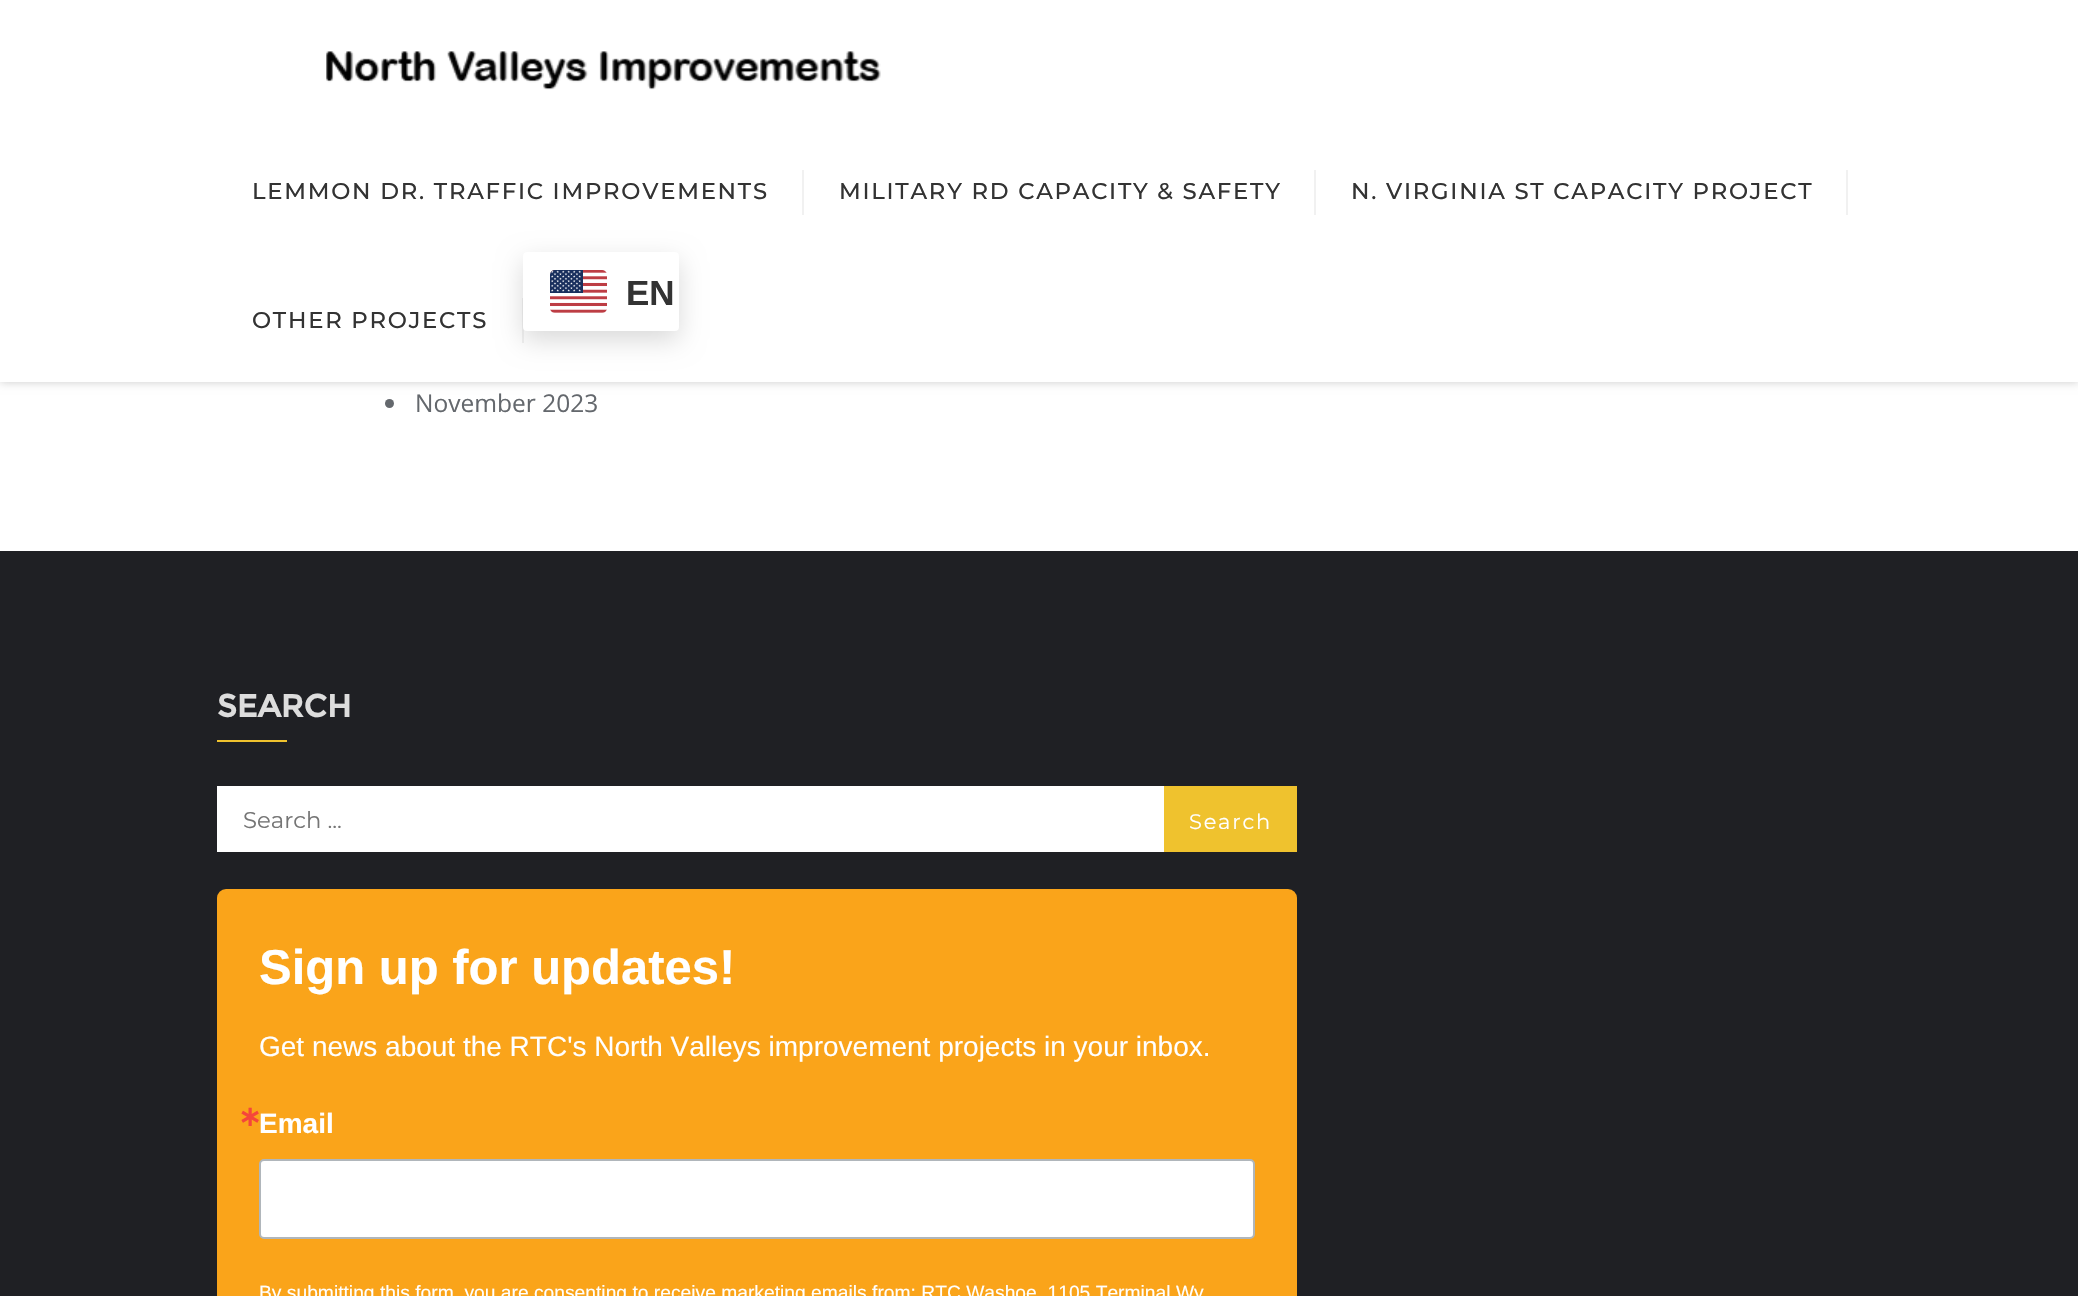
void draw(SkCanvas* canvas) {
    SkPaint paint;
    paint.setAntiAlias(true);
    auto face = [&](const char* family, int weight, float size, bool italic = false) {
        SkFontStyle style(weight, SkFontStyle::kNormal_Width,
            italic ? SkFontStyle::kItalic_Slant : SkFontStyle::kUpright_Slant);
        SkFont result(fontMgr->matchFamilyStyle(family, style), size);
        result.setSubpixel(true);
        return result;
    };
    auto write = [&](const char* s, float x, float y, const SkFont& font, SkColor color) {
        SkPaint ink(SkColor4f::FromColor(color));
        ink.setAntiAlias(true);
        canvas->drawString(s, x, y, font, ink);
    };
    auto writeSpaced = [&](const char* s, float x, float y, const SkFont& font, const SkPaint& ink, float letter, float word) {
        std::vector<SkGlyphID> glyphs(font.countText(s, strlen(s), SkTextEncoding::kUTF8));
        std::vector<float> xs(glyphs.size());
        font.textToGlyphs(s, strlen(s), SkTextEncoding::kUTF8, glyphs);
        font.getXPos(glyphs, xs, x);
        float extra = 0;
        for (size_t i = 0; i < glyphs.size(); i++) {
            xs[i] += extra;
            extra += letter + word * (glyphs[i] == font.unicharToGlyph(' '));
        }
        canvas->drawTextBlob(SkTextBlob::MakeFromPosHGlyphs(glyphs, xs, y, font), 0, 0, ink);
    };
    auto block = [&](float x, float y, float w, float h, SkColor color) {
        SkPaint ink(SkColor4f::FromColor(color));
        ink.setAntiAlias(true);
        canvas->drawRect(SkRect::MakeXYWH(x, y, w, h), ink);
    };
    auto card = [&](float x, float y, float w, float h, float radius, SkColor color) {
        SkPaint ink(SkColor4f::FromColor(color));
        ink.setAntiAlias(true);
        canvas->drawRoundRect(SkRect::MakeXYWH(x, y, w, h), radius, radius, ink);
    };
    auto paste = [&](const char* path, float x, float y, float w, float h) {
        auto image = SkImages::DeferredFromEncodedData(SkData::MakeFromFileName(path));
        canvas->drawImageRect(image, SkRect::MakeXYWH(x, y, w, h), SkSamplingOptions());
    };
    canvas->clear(SK_ColorWHITE);
    paint.setColor(SkColorSetRGB(204, 204, 204));
    paint.setMaskFilter(SkMaskFilter::MakeBlur(kNormal_SkBlurStyle, 4.5f));
    canvas->drawRect(SkRect::MakeXYWH(0, 0, 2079, 382), paint);
    paint.setMaskFilter(nullptr);
    block(0, 0, 2078, 382, SK_ColorWHITE);
    paste("pic1.png", 326, 51, 555, 39);
    auto kFont1 = face("Montserrat", 500, 22.75f);
    paint.setColor(SkColorSetRGB(51, 51, 51));
    writeSpaced("LEMMON DR. TRAFFIC IMPROVEMENTS", 252, 199, kFont1, paint, 1.75f, 0);
    block(802, 170, 2, 45, SkColorSetRGB(241, 241, 241));
    writeSpaced("MILITARY RD CAPACITY & SAFETY", 839, 199, kFont1, paint, 1.75f, 0);
    block(1314, 170, 2, 45, SkColorSetRGB(241, 241, 241));
    writeSpaced("N. VIRGINIA ST CAPACITY PROJECT", 1351, 199, kFont1, paint, 1.75f, 0);
    block(1846, 170, 2, 45, SkColorSetRGB(241, 241, 241));
    block(522, 298, 2, 45, SkColorSetRGB(241, 241, 241));
    paint.setColor(SkColorSetARGB(38, 0, 0, 0));
    paint.setMaskFilter(SkMaskFilter::MakeBlur(kNormal_SkBlurStyle, 13));
    canvas->drawRoundRect(SkRect::MakeXYWH(523, 261, 156, 79), 4, 4, paint);
    paint.setMaskFilter(nullptr);
    card(523, 252, 156, 79, 4, SK_ColorWHITE);
    paste("pic2.png", 550, 270, 57, 43);
    auto kFont2 = face("Liberation Sans", 700, 35);
    write("EN", 626, 305, kFont2, SkColorSetRGB(51, 51, 51));
    paint.setColor(SkColorSetRGB(51, 51, 51));
    writeSpaced("OTHER PROJECTS", 252, 328, kFont1, paint, 1.75f, 0);
    paint.setColor(SkColorSetRGB(100, 104, 109));
    canvas->drawCircle(389.5f, 403.5f, 4.5f, paint);
    auto kFont3 = face("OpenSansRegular", 400, 24.5f);
    write("November 2023", 415, 412, kFont3, SkColorSetRGB(100, 104, 109));
    block(0, 551, 2078, 745, SkColorSetRGB(31, 32, 36));
    auto kFont4 = face("Montserrat", 700, 31.5f);
    write("SEARCH", 217, 717, kFont4, SkColorSetRGB(221, 221, 221));
    block(217, 740, 70, 2, SkColorSetRGB(239, 194, 46));
    block(217, 786, 947, 66, SK_ColorWHITE);
    auto kFont5 = face("Montserrat", 400, 22.75f);
    write("Search ...", 243, 828, kFont5, SkColorSetRGB(117, 117, 117));
    block(1164, 786, 133, 66, SkColorSetRGB(239, 194, 46));
    auto kFont6 = face("Montserrat", 400, 21);
    paint.setColor(SK_ColorWHITE);
    writeSpaced("Search", 1189, 829, kFont6, paint, 1.75f, 0);
    card(217, 889, 1080, 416, 9, SkColorSetRGB(250, 164, 26));
    auto kFont7 = face("Liberation Sans", 700, 49);
    write("Sign up for updates!", 259, 984, kFont7, SK_ColorWHITE);
    auto kFont8 = face("Liberation Sans", 400, 28);
    write("Get news about the RTC's North Valleys improvement projects in your inbox.", 259, 1056, kFont8, SK_ColorWHITE);
    auto kFont9 = face("DejaVu Sans", 700, 28);
    write("∗", 238, 1126, kFont9, SkColorSetRGB(245, 70, 59));
    auto kFont10 = face("Liberation Sans", 700, 28);
    write("Email", 259, 1133, kFont10, SK_ColorWHITE);
    canvas->drawRoundRect(SkRect::MakeXYWH(260, 1160, 994, 78), 4, 4, paint);
    paint.setStyle(SkPaint::kStroke_Style);
    paint.setStrokeWidth(2);
    paint.setColor(SkColorSetRGB(176, 182, 187));
    canvas->drawRoundRect(SkRect::MakeXYWH(260, 1160, 994, 78), 4, 4, paint);
    auto kFont11 = face("Liberation Sans", 400, 19.25f);
    write("By submitting this form, you are consenting to receive marketing emails from: RTC Washoe, 1105 Terminal Wy", 259, 1299, kFont11, SK_ColorWHITE);
}
